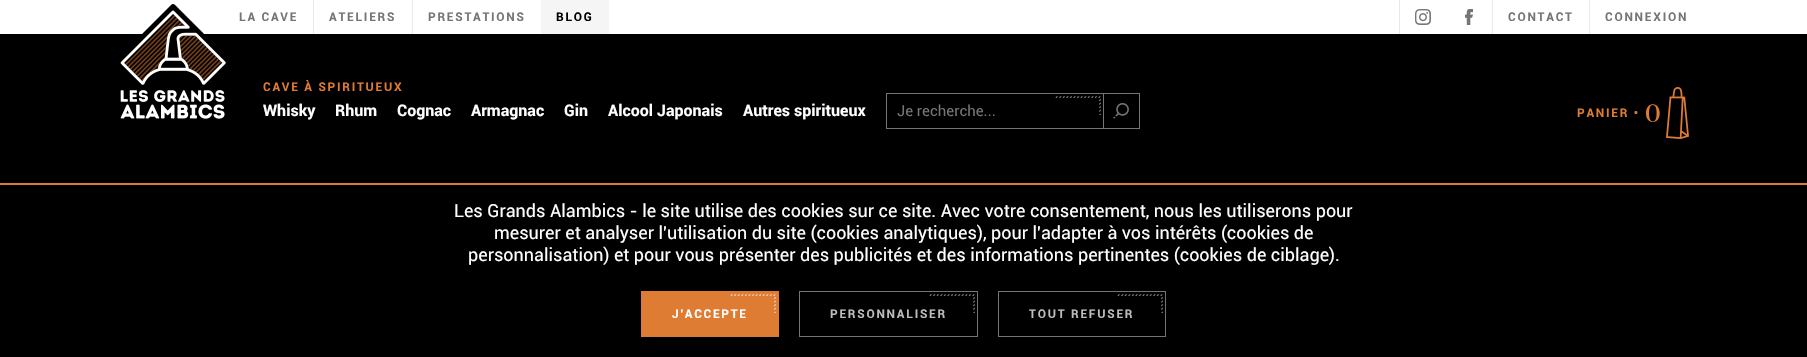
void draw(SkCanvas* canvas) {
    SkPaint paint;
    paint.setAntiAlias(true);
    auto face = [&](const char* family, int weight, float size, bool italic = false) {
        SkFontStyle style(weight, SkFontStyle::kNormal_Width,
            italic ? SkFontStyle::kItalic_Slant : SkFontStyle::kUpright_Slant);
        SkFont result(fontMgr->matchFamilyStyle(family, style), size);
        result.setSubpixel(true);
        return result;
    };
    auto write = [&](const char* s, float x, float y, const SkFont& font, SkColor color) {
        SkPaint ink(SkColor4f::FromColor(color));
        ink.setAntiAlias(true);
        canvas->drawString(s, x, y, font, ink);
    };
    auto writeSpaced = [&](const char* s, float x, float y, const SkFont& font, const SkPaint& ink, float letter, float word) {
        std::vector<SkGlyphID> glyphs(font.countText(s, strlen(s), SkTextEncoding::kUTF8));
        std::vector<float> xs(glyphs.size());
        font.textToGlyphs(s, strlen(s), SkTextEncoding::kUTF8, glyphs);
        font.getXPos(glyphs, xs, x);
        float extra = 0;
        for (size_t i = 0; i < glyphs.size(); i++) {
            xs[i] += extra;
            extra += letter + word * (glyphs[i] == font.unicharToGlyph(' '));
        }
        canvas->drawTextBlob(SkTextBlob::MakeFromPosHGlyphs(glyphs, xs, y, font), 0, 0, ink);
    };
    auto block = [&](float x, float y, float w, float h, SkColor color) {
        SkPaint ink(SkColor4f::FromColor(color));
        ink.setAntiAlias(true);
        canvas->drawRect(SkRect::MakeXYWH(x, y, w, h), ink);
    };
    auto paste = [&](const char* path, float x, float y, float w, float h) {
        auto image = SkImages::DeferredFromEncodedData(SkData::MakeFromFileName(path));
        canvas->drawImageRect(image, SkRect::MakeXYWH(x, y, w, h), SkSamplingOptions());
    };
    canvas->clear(SK_ColorWHITE);
    auto kFont1 = face("Roboto", 700, 12);
    paint.setColor(SkColorSetRGB(117, 117, 117));
    writeSpaced("LA CAVE", 239, 21, kFont1, paint, 1.75f, 0);
    block(313, 0, 1, 34, SkColorSetRGB(233, 233, 233));
    writeSpaced("ATELIERS", 329, 21, kFont1, paint, 1.75f, 0);
    block(412, 0, 1, 34, SkColorSetRGB(233, 233, 233));
    writeSpaced("PRESTATIONS", 428, 21, kFont1, paint, 1.75f, 0);
    block(541, 0, 68, 34, SkColorSetRGB(245, 245, 245));
    paint.setColor(SK_ColorBLACK);
    writeSpaced("BLOG", 556, 21, kFont1, paint, 1.75f, 0);
    block(1399, 0, 1, 34, SkColorSetRGB(233, 233, 233));
    paste("pic1.png", 1415, 9, 16, 16);
    paste("pic2.png", 1465, 9, 8, 16);
    block(1492, 0, 1, 34, SkColorSetRGB(233, 233, 233));
    paint.setColor(SkColorSetRGB(117, 117, 117));
    writeSpaced("CONTACT", 1508, 21, kFont1, paint, 1.75f, 0);
    block(1589, 0, 1, 34, SkColorSetRGB(233, 233, 233));
    writeSpaced("CONNEXION", 1605, 21, kFont1, paint, 1.75f, 0);
    block(0, 34, 1807, 149, SK_ColorBLACK);
    paste("pic3.png", 120, 4, 106, 115);
    paint.setColor(SkColorSetRGB(223, 124, 52));
    writeSpaced("CAVE À SPIRITUEUX", 263, 91, kFont1, paint, 1.75f, 0);
    auto kFont2 = face("Roboto", 700, 16);
    write("Whisky", 263, 116, kFont2, SK_ColorWHITE);
    write("Rhum", 335, 116, kFont2, SK_ColorWHITE);
    write("Cognac", 397, 116, kFont2, SK_ColorWHITE);
    write("Armagnac", 471, 116, kFont2, SK_ColorWHITE);
    write("Gin", 564, 116, kFont2, SK_ColorWHITE);
    write("Alcool Japonais", 608, 116, kFont2, SK_ColorWHITE);
    write("Autres spiritueux", 743, 116, kFont2, SK_ColorWHITE);
    paint.setStyle(SkPaint::kStroke_Style);
    paint.setStrokeWidth(1);
    paint.setColor(SkColorSetRGB(117, 117, 117));
    canvas->drawRect(SkRect::MakeXYWH(886.5f, 93.5f, 217, 35), paint);
    auto kFont3 = face("Roboto", 400, 15);
    write("Je recherche...", 897, 116, kFont3, SkColorSetRGB(117, 117, 117));
    paste("pic4.png", 1055, 96, 46, 19);
    block(1104, 93, 36, 1, SkColorSetRGB(117, 117, 117));
    block(1139, 93, 1, 36, SkColorSetRGB(117, 117, 117));
    block(1104, 128, 36, 1, SkColorSetRGB(117, 117, 117));
    paste("pic5.png", 1113, 103, 16, 16);
    paint.setStyle(SkPaint::kFill_Style);
    paint.setColor(SkColorSetRGB(223, 124, 52));
    writeSpaced("PANIER •", 1577, 117, kFont1, paint, 1.75f, 0);
    auto kFont4 = face("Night", 400, 26);
    write("0", 1646, 122, kFont4, SkColorSetRGB(223, 124, 52));
    paste("pic6.png", 1666, 87, 23, 52);
    block(0, 185, 1807, 172, SK_ColorBLACK);
    block(0, 183, 1807, 2, SkColorSetRGB(223, 124, 52));
    auto kFont5 = face("Roboto", 400, 18);
    write("Les Grands Alambics - le site utilise des cookies sur ce site. Avec votre consentement, nous les utiliserons pour", 454, 217, kFont5, SK_ColorWHITE);
    write("mesurer et analyser l'utilisation du site (cookies analytiques), pour l'adapter à vos intérêts (cookies de", 494, 239, kFont5, SK_ColorWHITE);
    write("personnalisation) et pour vous présenter des publicités et des informations pertinentes (cookies de ciblage).", 468, 261, kFont5, SK_ColorWHITE);
    block(641, 291, 138, 46, SkColorSetRGB(223, 124, 52));
    paint.setColor(SK_ColorWHITE);
    writeSpaced("J'ACCEPTE", 672, 318, kFont1, paint, 1.75f, 0);
    paste("pic7.png", 730, 294, 46, 19);
    paint.setStyle(SkPaint::kStroke_Style);
    paint.setColor(SkColorSetRGB(117, 117, 117));
    canvas->drawRect(SkRect::MakeXYWH(799.5f, 291.5f, 178, 45), paint);
    paint.setStyle(SkPaint::kFill_Style);
    paint.setColor(SkColorSetRGB(189, 189, 189));
    writeSpaced("PERSONNALISER", 830, 318, kFont1, paint, 1.75f, 0);
    paste("pic8.png", 929, 294, 46, 19);
    paint.setStyle(SkPaint::kStroke_Style);
    paint.setColor(SkColorSetRGB(117, 117, 117));
    canvas->drawRect(SkRect::MakeXYWH(998.5f, 291.5f, 167, 45), paint);
    paint.setStyle(SkPaint::kFill_Style);
    paint.setColor(SkColorSetRGB(189, 189, 189));
    writeSpaced("TOUT REFUSER", 1029, 318, kFont1, paint, 1.75f, 0);
    paste("pic9.png", 1117, 294, 46, 19);
}
